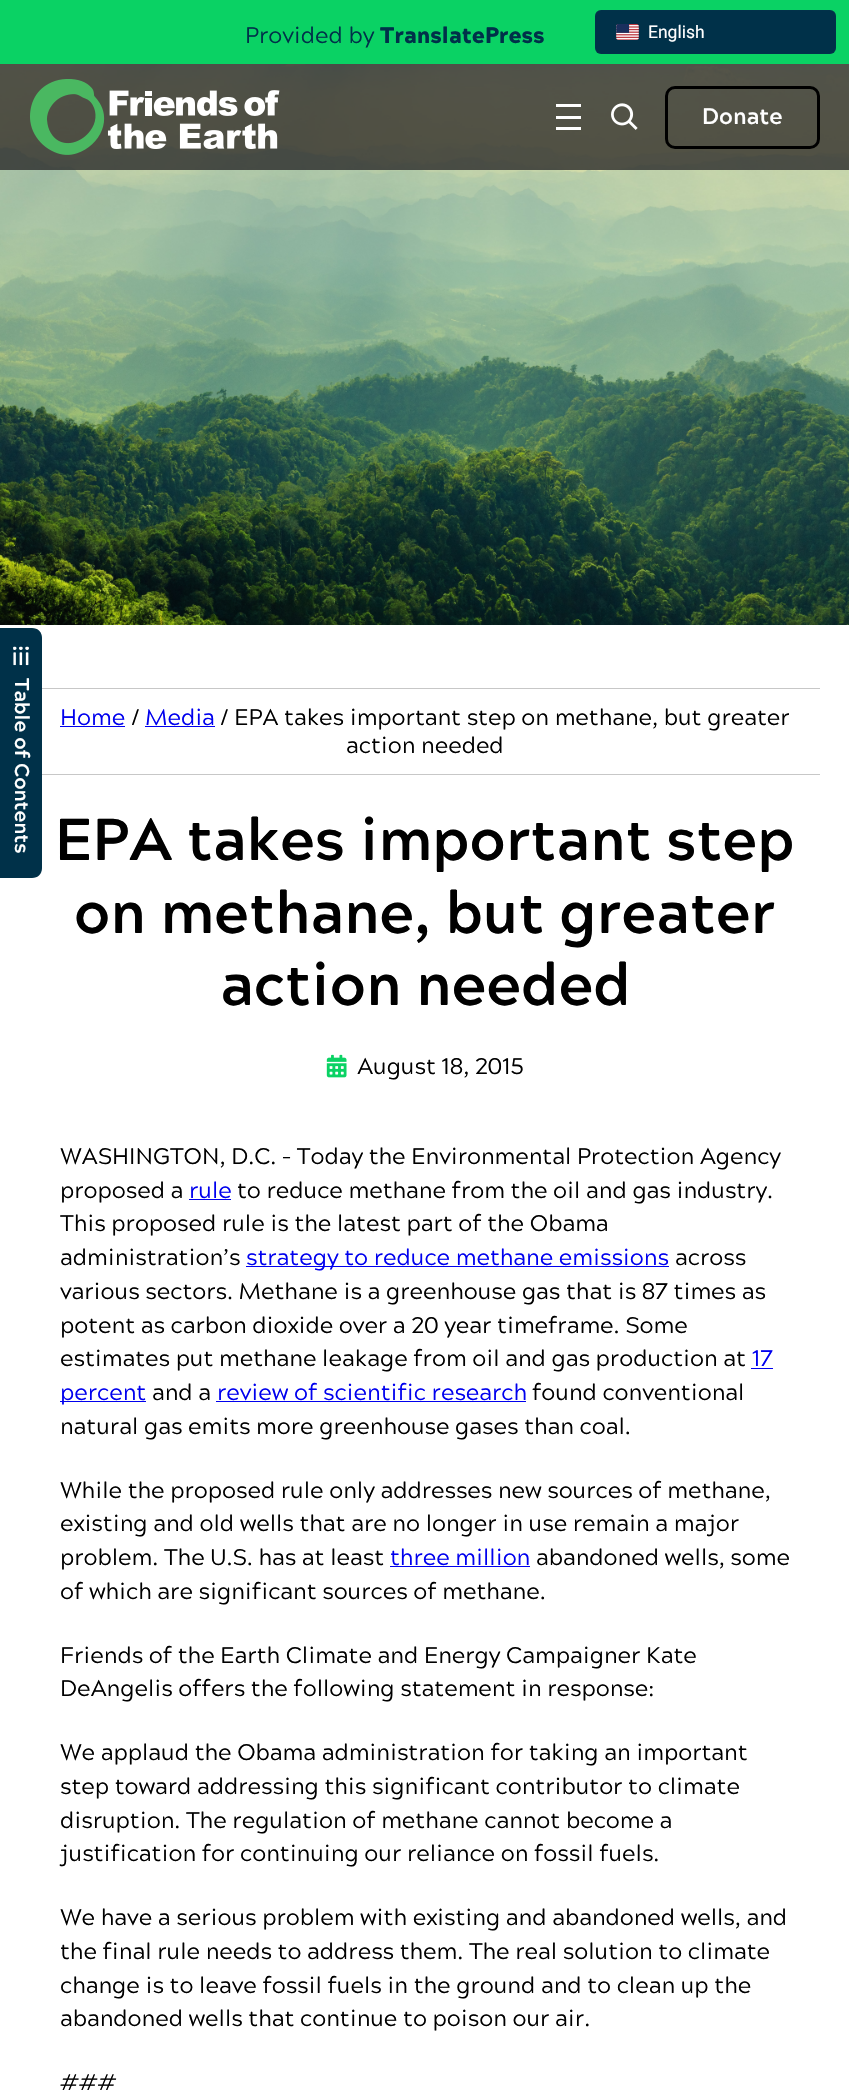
void draw(SkCanvas* canvas) {
    SkPaint paint;
    paint.setAntiAlias(true);
    auto face = [&](const char* family, int weight, float size, bool italic = false) {
        SkFontStyle style(weight, SkFontStyle::kNormal_Width,
            italic ? SkFontStyle::kItalic_Slant : SkFontStyle::kUpright_Slant);
        SkFont result(fontMgr->matchFamilyStyle(family, style), size);
        result.setSubpixel(true);
        return result;
    };
    auto write = [&](const char* s, float x, float y, const SkFont& font, SkColor color) {
        SkPaint ink(SkColor4f::FromColor(color));
        ink.setAntiAlias(true);
        canvas->drawString(s, x, y, font, ink);
    };
    auto block = [&](float x, float y, float w, float h, SkColor color) {
        SkPaint ink(SkColor4f::FromColor(color));
        ink.setAntiAlias(true);
        canvas->drawRect(SkRect::MakeXYWH(x, y, w, h), ink);
    };
    auto card = [&](float x, float y, float w, float h, float radius, SkColor color) {
        SkPaint ink(SkColor4f::FromColor(color));
        ink.setAntiAlias(true);
        canvas->drawRoundRect(SkRect::MakeXYWH(x, y, w, h), radius, radius, ink);
    };
    auto paste = [&](const char* path, float x, float y, float w, float h) {
        auto image = SkImages::DeferredFromEncodedData(SkData::MakeFromFileName(path));
        canvas->drawImageRect(image, SkRect::MakeXYWH(x, y, w, h), SkSamplingOptions());
    };
    canvas->clear(SK_ColorWHITE);
    block(0, 0, 849, 64, SkColorSetRGB(10, 210, 100));
    auto kFont1 = face("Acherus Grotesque", 400, 22.5f);
    write("Provided by", 245, 43, kFont1, SkColorSetRGB(0, 49, 73));
    auto kFont2 = face("Acherus Grotesque", 900, 22.5f);
    write("TranslatePress", 380, 43, kFont2, SkColorSetRGB(0, 49, 73));
    card(595, 10, 241, 44, 6, SkColorSetRGB(0, 49, 73));
    paint.setStyle(SkPaint::kStroke_Style);
    paint.setStrokeWidth(1);
    paint.setColor(SkColorSetARGB(26, 20, 56, 82));
    canvas->drawRoundRect(SkRect::MakeXYWH(595.5f, 10.5f, 240, 43), 5.5f, 5.5f, paint);
    paste("pic1.png", 616, 24, 23, 16);
    auto kFont3 = face("Roboto", 400, 17.5f);
    write("English", 648, 38, kFont3, SK_ColorWHITE);
    paste("pic4.png", 0, 64, 849, 561);
    block(0, 64, 849, 106, SkColorSetARGB(204, 43, 43, 43));
    paste("pic2.png", 30, 79, 250, 76);
    block(556, 104, 25, 3, SK_ColorWHITE);
    block(556, 116, 25, 3, SK_ColorWHITE);
    block(556, 127, 25, 3, SK_ColorWHITE);
    paste("pic3.png", 611, 103, 27, 27);
    paint.setStrokeWidth(3);
    paint.setColor(SK_ColorBLACK);
    canvas->drawRoundRect(SkRect::MakeXYWH(666.5f, 87.5f, 152, 60), 8.5f, 8.5f, paint);
    auto kFont4 = face("Acherus Grotesque", 700, 22.5f);
    write("Donate", 702, 124, kFont4, SK_ColorWHITE);
    paint.setStyle(SkPaint::kFill_Style);
    paint.setColor(SkColorSetRGB(0, 49, 73));
    canvas->drawPath(SkPathBuilder().moveTo(42, 638).lineTo(42, 868).cubicTo(42, 874, 38, 878, 32, 878).lineTo(0, 878).lineTo(0, 628).lineTo(32, 628).cubicTo(38, 628, 42, 632, 42, 638).close().detach(), paint);
    paste("pic5.png", 13, 646, 16, 20);
    auto kFont5 = face("Acherus Grotesque", 700, 20);
    canvas->save();
    canvas->rotate(90, 15, 678);
    write("Table of Contents", 15, 678, kFont5, SK_ColorWHITE);
    canvas->restore();
    block(42, 688, 778, 1, SkColorSetRGB(199, 199, 199));
    block(42, 774, 778, 1, SkColorSetRGB(199, 199, 199));
    write("Home", 60, 725, kFont1, SkColorSetRGB(0, 0, 238));
    block(60, 726, 65, 1, SkColorSetRGB(0, 0, 238));
    write("/", 131, 725, kFont1, SK_ColorBLACK);
    write("Media", 145, 725, kFont1, SkColorSetRGB(0, 0, 238));
    block(145, 726, 70, 1, SkColorSetRGB(0, 0, 238));
    write("/ EPA takes important step on methane, but greater", 220, 725, kFont1, SK_ColorBLACK);
    write("action needed", 346, 753, kFont1, SK_ColorBLACK);
    auto kFont6 = face("Acherus Grotesque", 700, 58.8f);
    write("EPA takes important step", 55, 860, kFont6, SK_ColorBLACK);
    write("on methane, but greater", 74, 933, kFont6, SK_ColorBLACK);
    write("action needed", 220, 1005, kFont6, SK_ColorBLACK);
    paste("pic6.png", 326, 1054, 21, 24);
    write("August 18, 2015", 357, 1074, kFont1, SK_ColorBLACK);
    write("WASHINGTON, D.C. – Today the Environmental Protection Agency", 60, 1164, kFont1, SK_ColorBLACK);
    write("proposed a", 60, 1198, kFont1, SK_ColorBLACK);
    write("rule", 189, 1198, kFont1, SkColorSetRGB(0, 0, 238));
    block(189, 1199, 42, 1, SkColorSetRGB(0, 0, 238));
    write("to reduce methane from the oil and gas industry.", 237, 1198, kFont1, SK_ColorBLACK);
    write("This proposed rule is the latest part of the Obama", 60, 1231, kFont1, SK_ColorBLACK);
    write("administration’s", 60, 1265, kFont1, SK_ColorBLACK);
    block(246, 1266, 423, 1, SkColorSetRGB(0, 0, 238));
    write("strategy to reduce methane emissions", 246, 1265, kFont1, SkColorSetRGB(0, 0, 238));
    write("across", 675, 1265, kFont1, SK_ColorBLACK);
    write("various sectors. Methane is a greenhouse gas that is 87 times as", 60, 1299, kFont1, SK_ColorBLACK);
    write("potent as carbon dioxide over a 20 year timeframe. Some", 60, 1333, kFont1, SK_ColorBLACK);
    write("estimates put methane leakage from oil and gas production at", 60, 1366, kFont1, SK_ColorBLACK);
    write("17", 752, 1366, kFont1, SkColorSetRGB(0, 0, 238));
    block(751, 1368, 22, 1, SkColorSetRGB(0, 0, 238));
    block(60, 1401, 86, 1, SkColorSetRGB(0, 0, 238));
    write("percent", 60, 1400, kFont1, SkColorSetRGB(0, 0, 238));
    write("and a", 152, 1400, kFont1, SK_ColorBLACK);
    write("review of scientific research", 217, 1400, kFont1, SkColorSetRGB(0, 0, 238));
    block(216, 1401, 310, 1, SkColorSetRGB(0, 0, 238));
    write("found conventional", 532, 1400, kFont1, SK_ColorBLACK);
    write("natural gas emits more greenhouse gases than coal.", 60, 1434, kFont1, SK_ColorBLACK);
    write("While the proposed rule only addresses new sources of methane,", 60, 1498, kFont1, SK_ColorBLACK);
    write("existing and old wells that are no longer in use remain a major", 60, 1531, kFont1, SK_ColorBLACK);
    write("problem. The U.S. has at least", 60, 1565, kFont1, SK_ColorBLACK);
    write("three million", 390, 1565, kFont1, SkColorSetRGB(0, 0, 238));
    block(390, 1566, 140, 1, SkColorSetRGB(0, 0, 238));
    write("abandoned wells, some", 536, 1565, kFont1, SK_ColorBLACK);
    write("of which are significant sources of methane.", 60, 1599, kFont1, SK_ColorBLACK);
    write("Friends of the Earth Climate and Energy Campaigner Kate", 60, 1663, kFont1, SK_ColorBLACK);
    write("DeAngelis offers the following statement in response:", 60, 1696, kFont1, SK_ColorBLACK);
    write("We applaud the Obama administration for taking an important", 60, 1760, kFont1, SK_ColorBLACK);
    write("step toward addressing this significant contributor to climate", 60, 1794, kFont1, SK_ColorBLACK);
    write("disruption. The regulation of methane cannot become a", 60, 1828, kFont1, SK_ColorBLACK);
    write("justification for continuing our reliance on fossil fuels.", 60, 1861, kFont1, SK_ColorBLACK);
    write("We have a serious problem with existing and abandoned wells, and", 60, 1925, kFont1, SK_ColorBLACK);
    write("the final rule needs to address them. The real solution to climate", 60, 1959, kFont1, SK_ColorBLACK);
    write("change is to leave fossil fuels in the ground and to clean up the", 60, 1993, kFont1, SK_ColorBLACK);
    write("abandoned wells that continue to poison our air.", 60, 2026, kFont1, SK_ColorBLACK);
    auto kFont7 = face("Acherus Grotesque", 400, 22.5f, true);
    write("###", 60, 2090, kFont7, SK_ColorBLACK);
}
